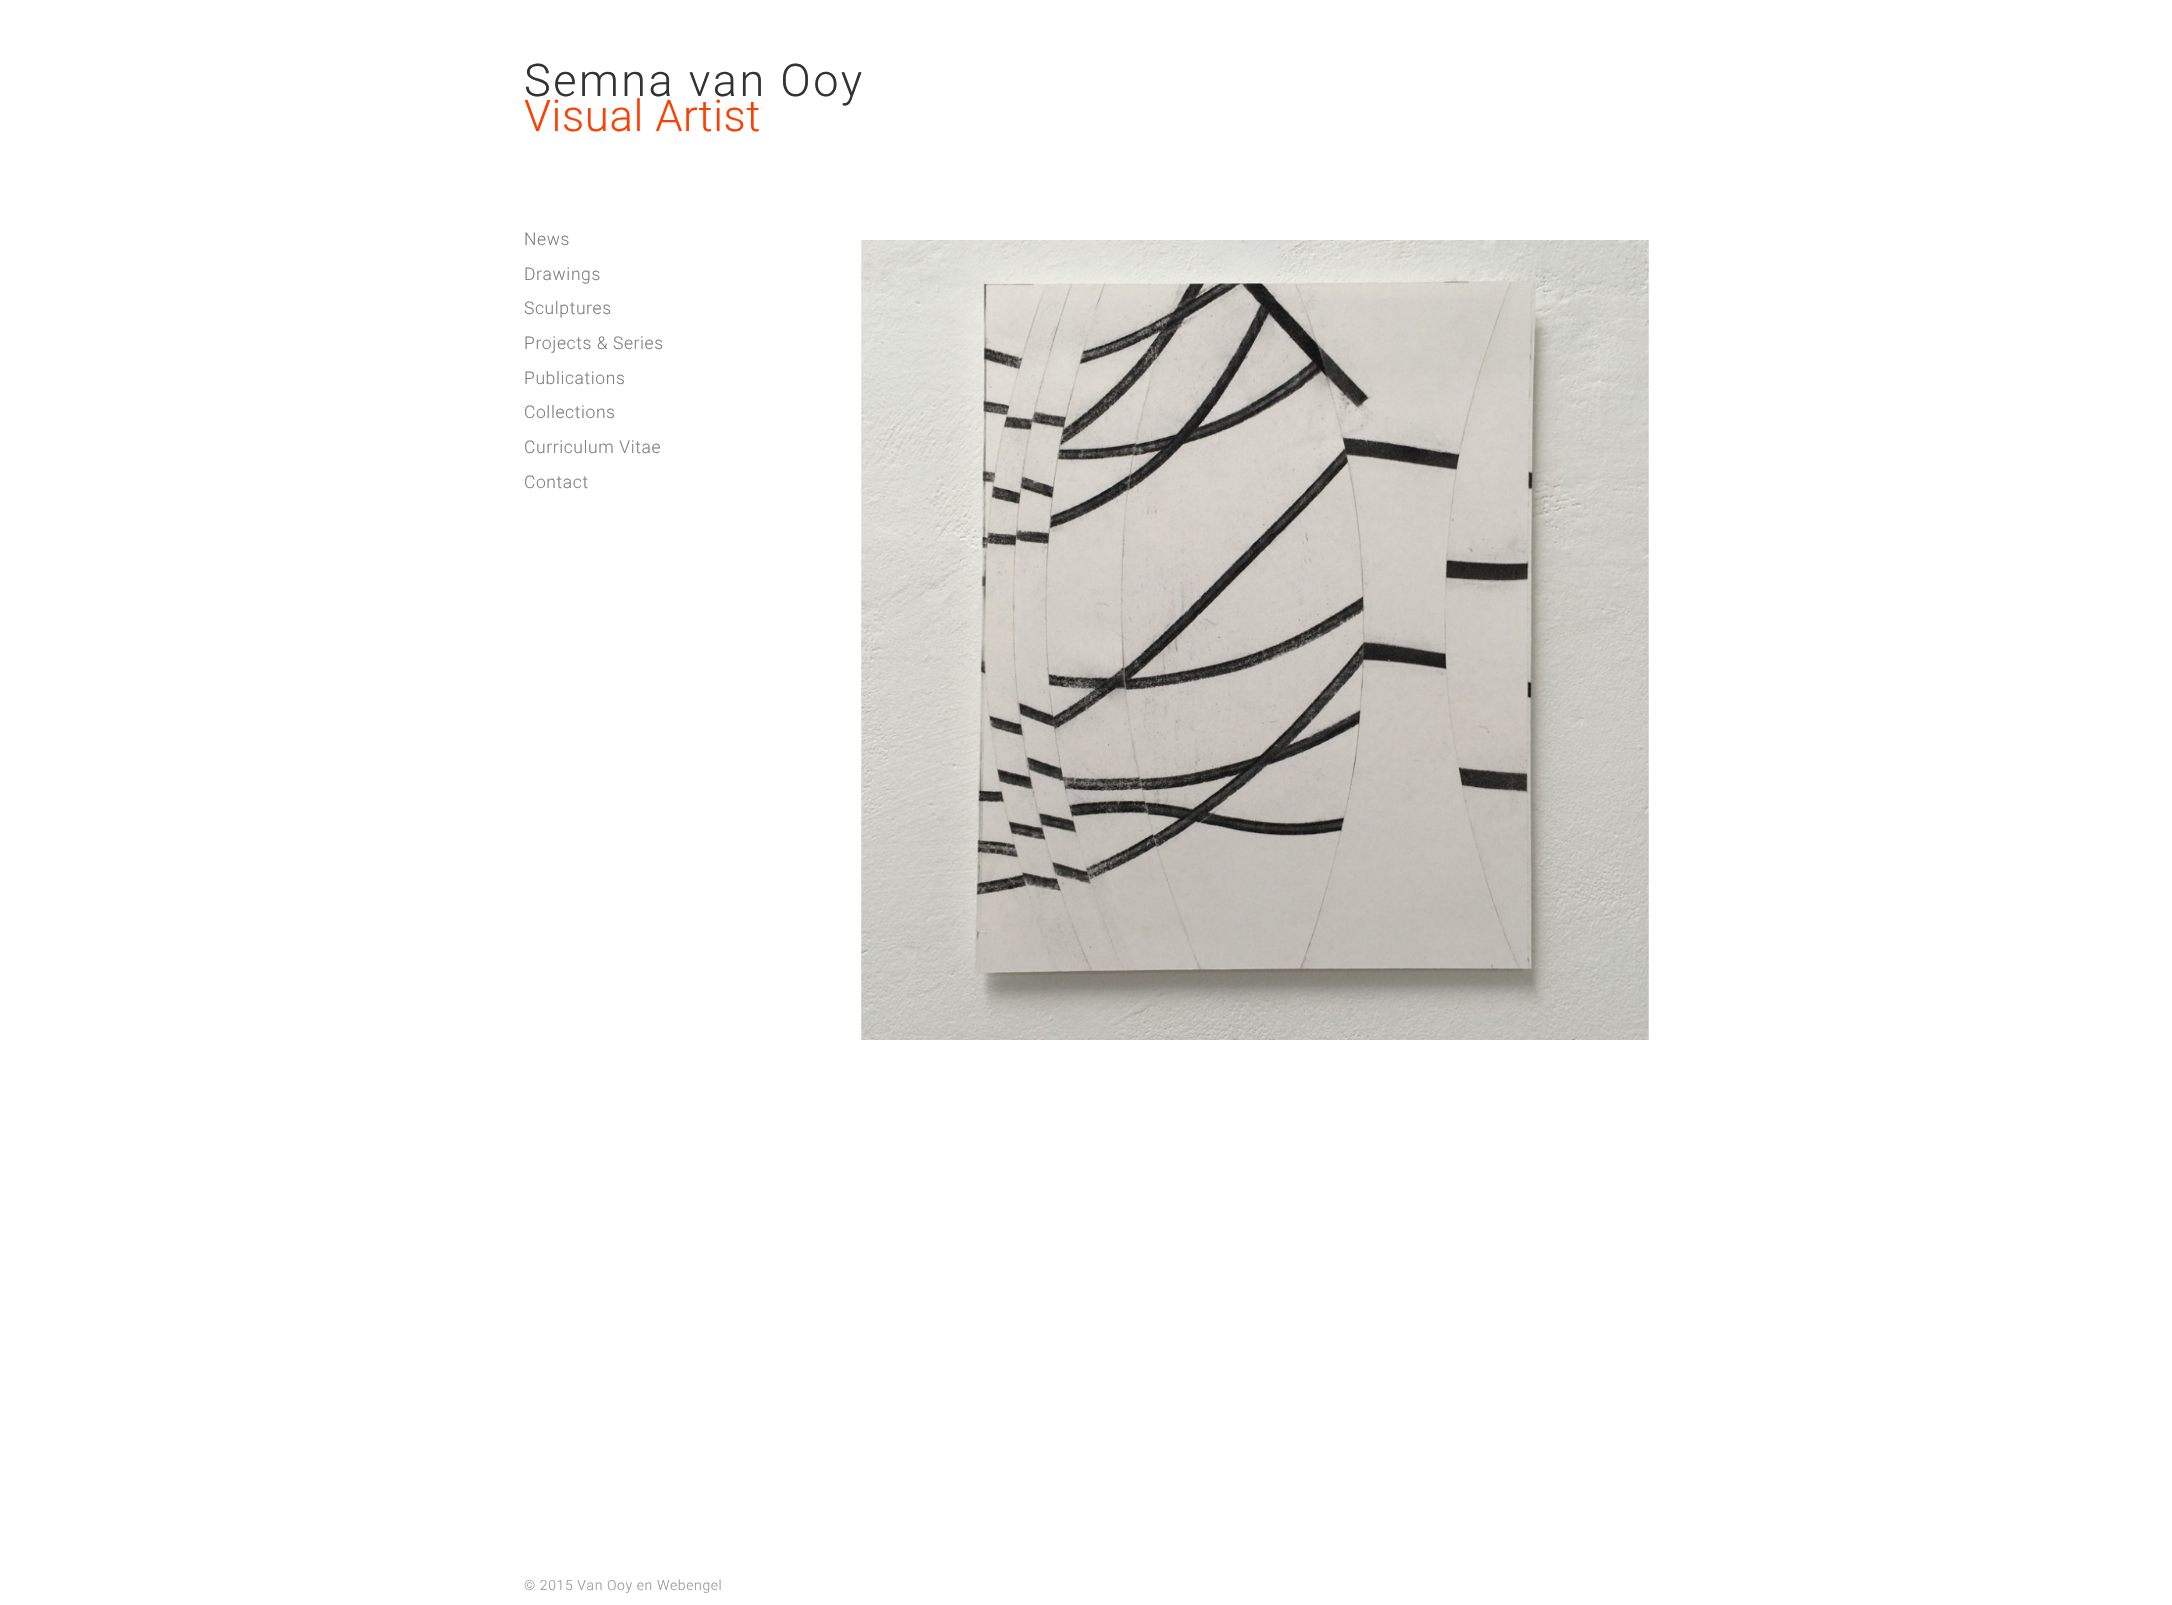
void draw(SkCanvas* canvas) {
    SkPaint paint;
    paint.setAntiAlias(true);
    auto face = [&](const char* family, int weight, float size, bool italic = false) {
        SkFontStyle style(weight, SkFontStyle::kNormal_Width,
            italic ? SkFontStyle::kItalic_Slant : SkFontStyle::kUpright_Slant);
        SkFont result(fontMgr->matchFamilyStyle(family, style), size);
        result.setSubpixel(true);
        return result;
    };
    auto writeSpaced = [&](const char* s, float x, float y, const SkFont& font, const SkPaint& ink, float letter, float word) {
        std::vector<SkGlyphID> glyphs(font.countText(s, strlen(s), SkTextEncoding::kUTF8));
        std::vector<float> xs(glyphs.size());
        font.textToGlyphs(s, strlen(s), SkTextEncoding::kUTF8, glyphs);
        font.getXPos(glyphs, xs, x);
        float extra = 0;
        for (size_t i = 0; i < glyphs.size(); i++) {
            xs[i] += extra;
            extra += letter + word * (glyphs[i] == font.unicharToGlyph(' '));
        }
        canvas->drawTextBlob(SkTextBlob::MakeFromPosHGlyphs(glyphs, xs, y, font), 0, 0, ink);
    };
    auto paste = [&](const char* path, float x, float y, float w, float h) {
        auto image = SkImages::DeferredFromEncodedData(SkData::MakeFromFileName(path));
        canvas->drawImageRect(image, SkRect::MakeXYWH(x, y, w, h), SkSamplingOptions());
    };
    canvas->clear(SK_ColorWHITE);
    auto kFont1 = face("Roboto", 300, 45);
    paint.setColor(SkColorSetRGB(51, 51, 51));
    writeSpaced("Semna van Ooy", 524, 96, kFont1, paint, 2.5f, 0);
    auto kFont2 = face("Roboto", 300, 43.75f);
    paint.setColor(SkColorSetRGB(255, 63, 1));
    writeSpaced("Visual Artist", 524, 131, kFont2, paint, 0.6f, 0);
    auto kFont3 = face("Roboto", 300, 17.5f);
    paint.setColor(SkColorSetRGB(128, 128, 128));
    writeSpaced("News", 524, 245, kFont3, paint, 0.6f, 0);
    writeSpaced("Drawings", 524, 280, kFont3, paint, 0.6f, 0);
    writeSpaced("Sculptures", 524, 314, kFont3, paint, 0.6f, 0);
    writeSpaced("Projects & Series", 524, 349, kFont3, paint, 0.6f, 0);
    writeSpaced("Publications", 524, 384, kFont3, paint, 0.6f, 0);
    writeSpaced("Collections", 524, 418, kFont3, paint, 0.6f, 0);
    writeSpaced("Curriculum Vitae", 524, 453, kFont3, paint, 0.6f, 0);
    writeSpaced("Contact", 524, 488, kFont3, paint, 0.6f, 0);
    paste("pic1.png", 861, 240, 788, 800);
    auto kFont4 = face("Roboto", 300, 14);
    paint.setColor(SkColorSetRGB(147, 151, 147));
    writeSpaced("© 2015 Van Ooy en Webengel", 524, 1590, kFont4, paint, 0.6f, 0);
}
